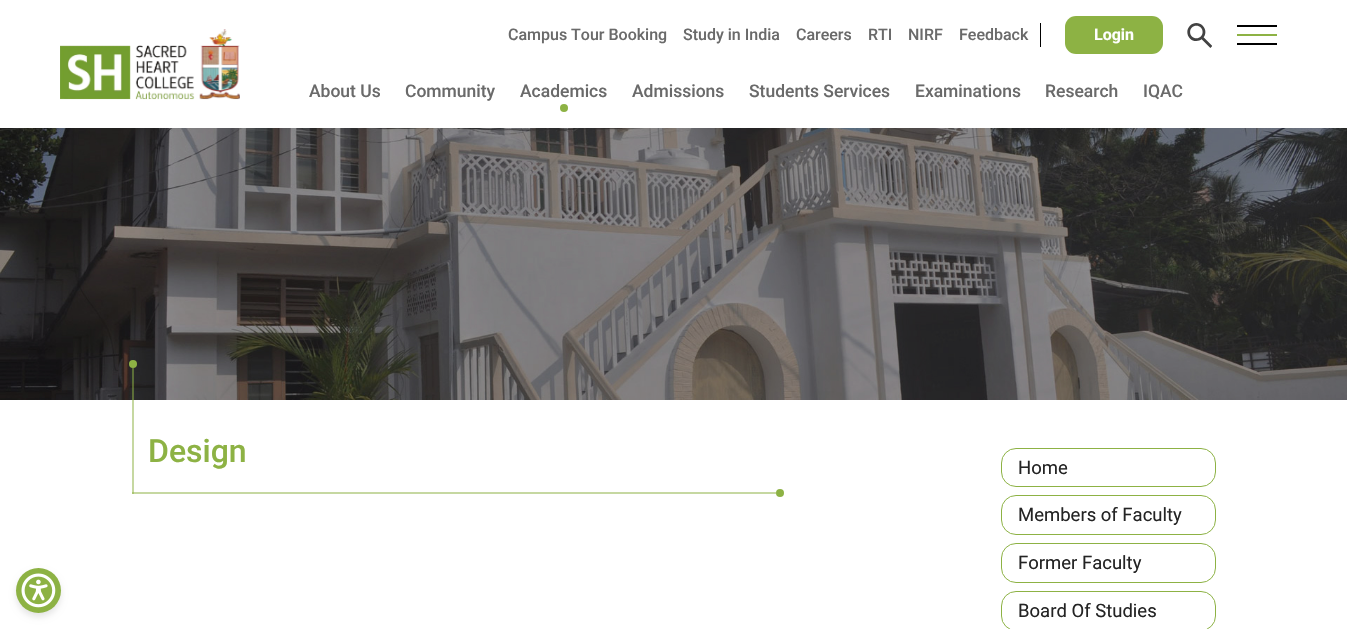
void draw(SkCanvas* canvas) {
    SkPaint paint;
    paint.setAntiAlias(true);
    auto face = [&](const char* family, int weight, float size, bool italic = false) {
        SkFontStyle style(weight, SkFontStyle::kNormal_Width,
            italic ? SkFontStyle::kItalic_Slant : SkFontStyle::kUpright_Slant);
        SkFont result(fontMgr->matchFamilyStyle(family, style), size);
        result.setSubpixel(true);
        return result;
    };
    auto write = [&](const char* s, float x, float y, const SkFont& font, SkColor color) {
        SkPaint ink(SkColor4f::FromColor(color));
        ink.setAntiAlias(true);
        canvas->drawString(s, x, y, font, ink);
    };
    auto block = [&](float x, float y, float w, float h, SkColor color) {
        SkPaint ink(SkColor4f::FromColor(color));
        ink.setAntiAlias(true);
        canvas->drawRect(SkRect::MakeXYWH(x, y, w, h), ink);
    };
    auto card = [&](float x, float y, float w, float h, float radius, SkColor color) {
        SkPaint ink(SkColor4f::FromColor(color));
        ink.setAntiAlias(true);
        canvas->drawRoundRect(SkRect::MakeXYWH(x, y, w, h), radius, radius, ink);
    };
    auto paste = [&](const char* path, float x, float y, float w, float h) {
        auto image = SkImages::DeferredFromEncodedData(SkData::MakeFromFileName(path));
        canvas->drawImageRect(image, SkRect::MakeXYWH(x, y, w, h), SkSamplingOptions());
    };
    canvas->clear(SK_ColorWHITE);
    paint.setColor(SkColorSetARGB(26, 0, 0, 0));
    paint.setMaskFilter(SkMaskFilter::MakeBlur(kNormal_SkBlurStyle, 3));
    canvas->drawRoundRect(SkRect::MakeXYWH(16, 572, 45, 45), 22.5f, 22.5f, paint);
    paint.setMaskFilter(nullptr);
    paint.setColor(SkColorSetRGB(141, 178, 68));
    canvas->drawCircle(38.5f, 590.5f, 22.5f, paint);
    paste("pic1.png", 21, 573, 35, 35);
    paste("pic2.png", 60, 29, 180, 71);
    auto kFont1 = face("Roboto", 500, 16);
    write("Campus Tour Booking", 508, 40, kFont1, SkColorSetRGB(106, 106, 106));
    write("Study in India", 683, 40, kFont1, SkColorSetRGB(106, 106, 106));
    write("Careers", 796, 40, kFont1, SkColorSetRGB(106, 106, 106));
    write("RTI", 868, 40, kFont1, SkColorSetRGB(106, 106, 106));
    write("NIRF", 908, 40, kFont1, SkColorSetRGB(106, 106, 106));
    write("Feedback", 959, 40, kFont1, SkColorSetRGB(106, 106, 106));
    block(1040, 23, 1, 24, SK_ColorBLACK);
    card(1065, 16, 98, 38, 11, SkColorSetRGB(141, 178, 68));
    auto kFont2 = face("Roboto", 700, 16);
    write("Login", 1094, 40, kFont2, SK_ColorWHITE);
    paste("pic3.png", 1187, 23, 25, 25);
    block(1237, 25, 40, 2, SK_ColorBLACK);
    block(1237, 34, 40, 2, SkColorSetRGB(141, 178, 68));
    block(1237, 43, 40, 2, SK_ColorBLACK);
    auto kFont3 = face("Roboto", 500, 17.5f);
    write("About Us", 309, 97, kFont3, SkColorSetRGB(106, 106, 106));
    write("Community", 405, 97, kFont3, SkColorSetRGB(106, 106, 106));
    write("Academics", 520, 97, kFont3, SkColorSetRGB(106, 106, 106));
    canvas->drawCircle(564, 108, 4, paint);
    write("Admissions", 632, 97, kFont3, SkColorSetRGB(106, 106, 106));
    write("Students Services", 749, 97, kFont3, SkColorSetRGB(106, 106, 106));
    write("Examinations", 915, 97, kFont3, SkColorSetRGB(106, 106, 106));
    write("Research", 1045, 97, kFont3, SkColorSetRGB(106, 106, 106));
    write("IQAC", 1143, 97, kFont3, SkColorSetRGB(106, 106, 106));
    paste("pic4.png", 0, 128, 1347, 272);
    block(132, 368, 2, 126, SkColorSetARGB(128, 141, 178, 68));
    canvas->drawCircle(133, 364, 4, paint);
    auto kFont4 = face("Roboto", 500, 32);
    write("Design", 148, 462, kFont4, SkColorSetRGB(141, 178, 68));
    canvas->drawCircle(780, 493, 4, paint);
    block(132, 492, 644, 2, SkColorSetARGB(128, 141, 178, 68));
    paint.setStyle(SkPaint::kStroke_Style);
    paint.setStrokeWidth(1);
    canvas->drawRoundRect(SkRect::MakeXYWH(1001.5f, 448.5f, 214, 38), 14.5f, 14.5f, paint);
    auto kFont5 = face("Roboto", 400, 18.5f);
    write("Home", 1018, 474, kFont5, SkColorSetRGB(36, 36, 36));
    canvas->drawRoundRect(SkRect::MakeXYWH(1001.5f, 495.5f, 214, 39), 14.5f, 14.5f, paint);
    write("Members of Faculty", 1018, 521, kFont5, SkColorSetRGB(36, 36, 36));
    canvas->drawRoundRect(SkRect::MakeXYWH(1001.5f, 543.5f, 214, 39), 14.5f, 14.5f, paint);
    write("Former Faculty", 1018, 569, kFont5, SkColorSetRGB(36, 36, 36));
    canvas->drawRoundRect(SkRect::MakeXYWH(1001.5f, 591.5f, 214, 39), 14.5f, 14.5f, paint);
    write("Board Of Studies", 1018, 617, kFont5, SkColorSetRGB(36, 36, 36));
}
